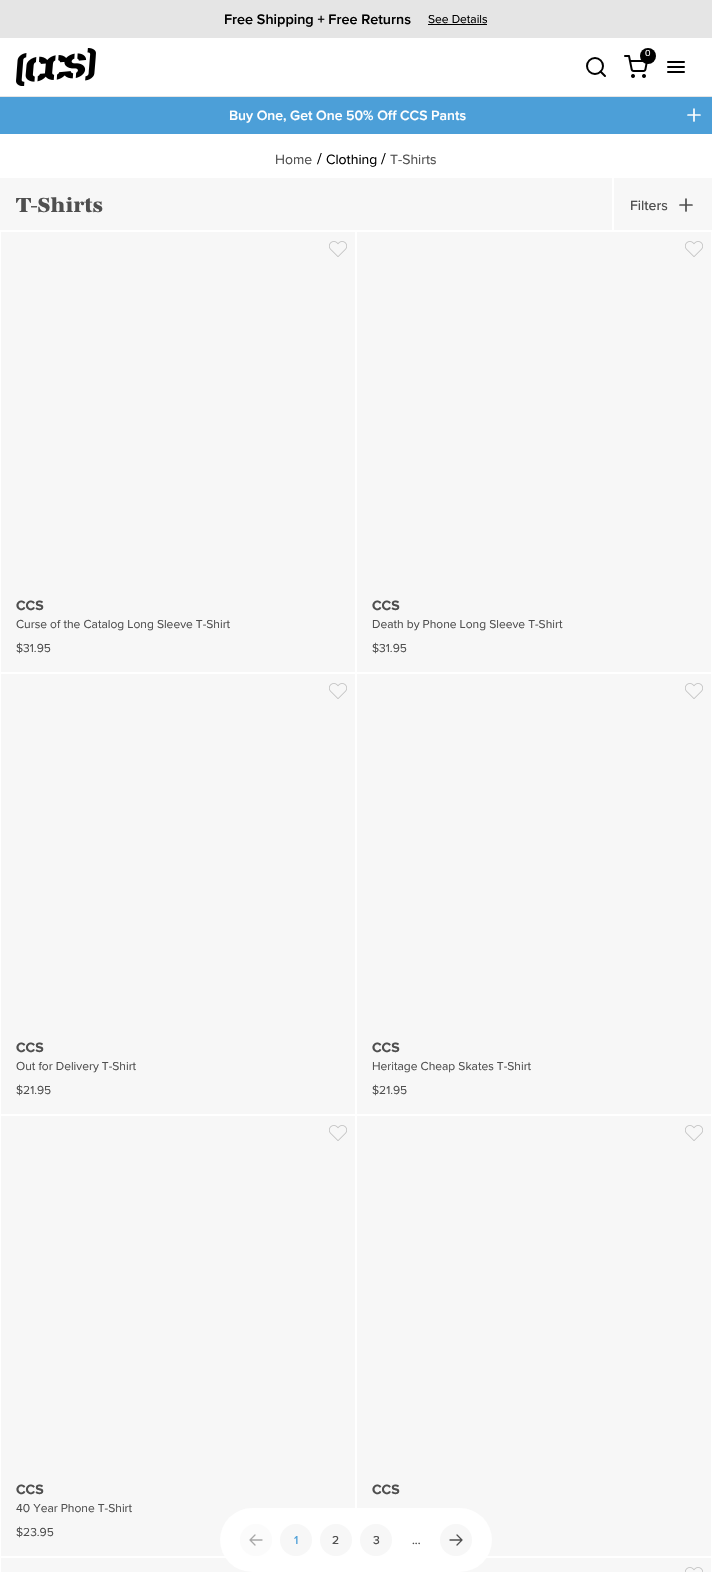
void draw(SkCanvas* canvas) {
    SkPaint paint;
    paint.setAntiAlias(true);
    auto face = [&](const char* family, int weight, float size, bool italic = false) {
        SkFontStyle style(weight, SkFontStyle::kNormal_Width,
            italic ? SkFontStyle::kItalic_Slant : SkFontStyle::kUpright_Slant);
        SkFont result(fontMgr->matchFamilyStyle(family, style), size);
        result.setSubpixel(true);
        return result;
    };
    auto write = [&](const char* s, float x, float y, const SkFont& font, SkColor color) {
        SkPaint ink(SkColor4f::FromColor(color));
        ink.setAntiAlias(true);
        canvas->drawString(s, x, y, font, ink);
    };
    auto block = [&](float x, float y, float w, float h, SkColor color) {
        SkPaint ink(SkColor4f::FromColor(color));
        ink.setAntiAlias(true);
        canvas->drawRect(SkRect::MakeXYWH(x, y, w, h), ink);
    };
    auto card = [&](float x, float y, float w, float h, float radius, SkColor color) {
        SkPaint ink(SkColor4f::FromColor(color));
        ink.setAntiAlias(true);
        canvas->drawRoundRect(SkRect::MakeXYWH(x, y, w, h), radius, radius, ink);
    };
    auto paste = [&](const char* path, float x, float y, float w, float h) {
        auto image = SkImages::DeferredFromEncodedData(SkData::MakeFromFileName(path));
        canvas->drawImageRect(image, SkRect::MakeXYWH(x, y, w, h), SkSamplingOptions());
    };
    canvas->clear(SK_ColorWHITE);
    block(0, 0, 712, 38, SkColorSetRGB(229, 229, 229));
    auto kFont1 = face("Proxima Nova", 600, 14.4f);
    write("Free Shipping + Free Returns", 224, 24, kFont1, SK_ColorBLACK);
    auto kFont2 = face("Proxima Nova", 400, 12);
    write("See Details", 428, 23, kFont2, SK_ColorBLACK);
    block(428, 24, 59, 1, SK_ColorBLACK);
    block(0, 96, 712, 1, SkColorSetRGB(229, 229, 229));
    paste("pic1.png", 16, 48, 80, 38);
    paste("pic2.png", 624, 55, 24, 23);
    paint.setColor(SK_ColorBLACK);
    canvas->drawCircle(648, 56, 8, paint);
    auto kFont3 = face("Proxima Nova", 400, 9);
    write("0", 645, 56, kFont3, SK_ColorWHITE);
    paint.setStyle(SkPaint::kStroke_Style);
    paint.setStrokeWidth(2);
    canvas->drawCircle(595, 66, 8, paint);
    paint.setStrokeCap(SkPaint::kRound_Cap);
    paint.setStrokeJoin(SkPaint::kRound_Join);
    canvas->drawPath(SkPathBuilder().moveTo(605, 76).lineTo(600.5f, 71.5f).detach(), paint);
    canvas->drawPath(SkPathBuilder().moveTo(668, 62).lineTo(684, 62).moveTo(668, 67).lineTo(684, 67).moveTo(668, 72).lineTo(684, 72).detach(), paint);
    block(0, 97, 712, 37, SkColorSetRGB(76, 159, 216));
    auto kFont4 = face("Proxima Nova", 600, 14);
    write("Buy One, Get One 50% Off CCS Pants", 229, 120, kFont4, SK_ColorWHITE);
    paint.setStrokeWidth(1.7f);
    paint.setColor(SK_ColorWHITE);
    canvas->drawPath(SkPathBuilder().moveTo(694, 109).lineTo(694, 121).moveTo(688, 115).lineTo(700, 115).detach(), paint);
    auto kFont5 = face("Proxima Nova", 400, 14);
    write("Home", 275, 164, kFont5, SkColorSetRGB(79, 79, 79));
    auto kFont6 = face("Proxima Nova", 400, 16);
    write("/", 317, 164, kFont6, SK_ColorBLACK);
    write("Clothing", 326, 164, kFont5, SK_ColorBLACK);
    write("/", 381, 164, kFont6, SK_ColorBLACK);
    write("T-Shirts", 390, 164, kFont5, SkColorSetRGB(79, 79, 79));
    block(0, 178, 712, 52, SkColorSetRGB(247, 247, 247));
    auto kFont7 = face("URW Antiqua", 800, 21);
    write("T-Shirts", 16, 212, kFont7, SkColorSetRGB(79, 79, 79));
    block(612, 178, 2, 54, SK_ColorWHITE);
    auto kFont8 = face("Proxima Nova", 500, 14);
    write("Filters", 630, 210, kFont8, SkColorSetRGB(79, 79, 79));
    paint.setColor(SkColorSetRGB(79, 79, 79));
    canvas->drawPath(SkPathBuilder().moveTo(686, 199).lineTo(686, 211).moveTo(680, 205).lineTo(692, 205).detach(), paint);
    block(1, 232, 354, 440, SkColorSetRGB(247, 247, 247));
    paste("pic3.png", 329, 241, 18, 16);
    auto kFont9 = face("Proxima Nova", 700, 14);
    write("CCS", 16, 610, kFont9, SkColorSetRGB(79, 79, 79));
    write("Curse of the Catalog Long Sleeve T-Shirt", 16, 628, kFont2, SkColorSetRGB(79, 79, 79));
    write("$31.95", 16, 652, kFont2, SkColorSetRGB(79, 79, 79));
    block(357, 232, 354, 440, SkColorSetRGB(247, 247, 247));
    paste("pic3.png", 685, 241, 18, 16);
    write("CCS", 372, 610, kFont9, SkColorSetRGB(79, 79, 79));
    write("Death by Phone Long Sleeve T-Shirt", 372, 628, kFont2, SkColorSetRGB(79, 79, 79));
    write("$31.95", 372, 652, kFont2, SkColorSetRGB(79, 79, 79));
    block(1, 674, 354, 440, SkColorSetRGB(247, 247, 247));
    paste("pic3.png", 329, 683, 18, 16);
    write("CCS", 16, 1052, kFont9, SkColorSetRGB(79, 79, 79));
    write("Out for Delivery T-Shirt", 16, 1070, kFont2, SkColorSetRGB(79, 79, 79));
    write("$21.95", 16, 1094, kFont2, SkColorSetRGB(79, 79, 79));
    block(357, 674, 354, 440, SkColorSetRGB(247, 247, 247));
    paste("pic3.png", 685, 683, 18, 16);
    write("CCS", 372, 1052, kFont9, SkColorSetRGB(79, 79, 79));
    write("Heritage Cheap Skates T-Shirt", 372, 1070, kFont2, SkColorSetRGB(79, 79, 79));
    write("$21.95", 372, 1094, kFont2, SkColorSetRGB(79, 79, 79));
    block(1, 1116, 354, 440, SkColorSetRGB(247, 247, 247));
    paste("pic3.png", 329, 1125, 18, 16);
    write("CCS", 16, 1494, kFont9, SkColorSetRGB(79, 79, 79));
    write("40 Year Phone T-Shirt", 16, 1512, kFont2, SkColorSetRGB(79, 79, 79));
    write("$23.95", 16, 1536, kFont2, SkColorSetRGB(79, 79, 79));
    block(357, 1116, 354, 440, SkColorSetRGB(247, 247, 247));
    paste("pic3.png", 685, 1125, 18, 16);
    write("CCS", 372, 1494, kFont9, SkColorSetRGB(79, 79, 79));
    block(1, 1558, 251, 14, SkColorSetRGB(247, 247, 247));
    block(460, 1558, 251, 14, SkColorSetRGB(247, 247, 247));
    paste("pic4.png", 685, 1567, 18, 5);
    card(220, 1508, 272, 64, 32, SK_ColorWHITE);
    paint.setStyle(SkPaint::kFill_Style);
    paint.setColor(SkColorSetRGB(251, 251, 251));
    canvas->drawCircle(256, 1540, 16, paint);
    paint.setStyle(SkPaint::kStroke_Style);
    paint.setStrokeWidth(1.3f);
    paint.setColor(SkColorSetRGB(167, 167, 167));
    canvas->drawPath(SkPathBuilder().moveTo(255, 1545).lineTo(250, 1540).moveTo(250, 1540).lineTo(255, 1535).moveTo(250, 1540).lineTo(262, 1540).detach(), paint);
    paint.setStyle(SkPaint::kFill_Style);
    paint.setColor(SkColorSetRGB(247, 247, 247));
    canvas->drawCircle(296, 1540, 16, paint);
    auto kFont10 = face("Proxima Nova", 500, 12);
    write("1", 294, 1544, kFont10, SkColorSetRGB(76, 159, 216));
    canvas->drawCircle(336, 1540, 16, paint);
    write("2", 332, 1544, kFont10, SkColorSetRGB(79, 79, 79));
    canvas->drawCircle(376, 1540, 16, paint);
    write("3", 373, 1544, kFont10, SkColorSetRGB(79, 79, 79));
    write("...", 412, 1544, kFont10, SkColorSetRGB(79, 79, 79));
    canvas->drawCircle(456, 1540, 16, paint);
    paint.setStyle(SkPaint::kStroke_Style);
    paint.setColor(SkColorSetRGB(79, 79, 79));
    canvas->drawPath(SkPathBuilder().moveTo(457, 1535).lineTo(462, 1540).moveTo(462, 1540).lineTo(457, 1545).moveTo(462, 1540).lineTo(450, 1540).detach(), paint);
}
